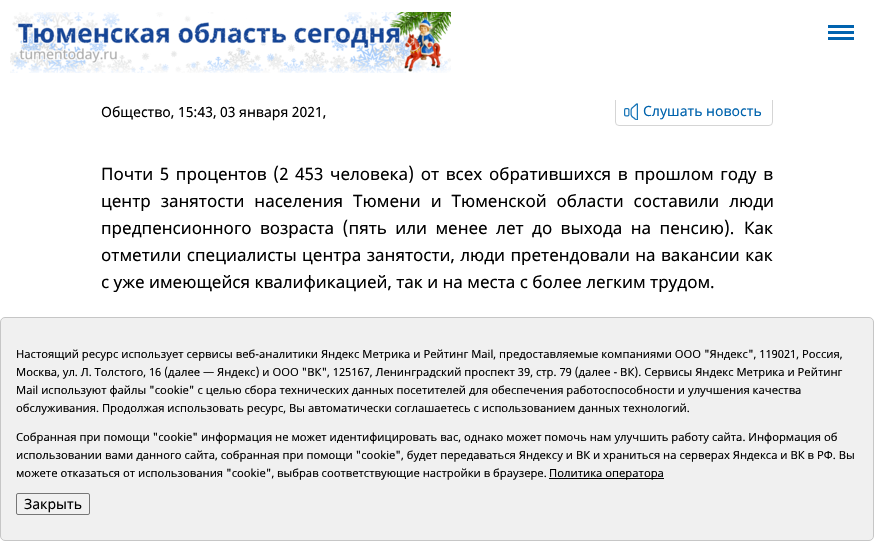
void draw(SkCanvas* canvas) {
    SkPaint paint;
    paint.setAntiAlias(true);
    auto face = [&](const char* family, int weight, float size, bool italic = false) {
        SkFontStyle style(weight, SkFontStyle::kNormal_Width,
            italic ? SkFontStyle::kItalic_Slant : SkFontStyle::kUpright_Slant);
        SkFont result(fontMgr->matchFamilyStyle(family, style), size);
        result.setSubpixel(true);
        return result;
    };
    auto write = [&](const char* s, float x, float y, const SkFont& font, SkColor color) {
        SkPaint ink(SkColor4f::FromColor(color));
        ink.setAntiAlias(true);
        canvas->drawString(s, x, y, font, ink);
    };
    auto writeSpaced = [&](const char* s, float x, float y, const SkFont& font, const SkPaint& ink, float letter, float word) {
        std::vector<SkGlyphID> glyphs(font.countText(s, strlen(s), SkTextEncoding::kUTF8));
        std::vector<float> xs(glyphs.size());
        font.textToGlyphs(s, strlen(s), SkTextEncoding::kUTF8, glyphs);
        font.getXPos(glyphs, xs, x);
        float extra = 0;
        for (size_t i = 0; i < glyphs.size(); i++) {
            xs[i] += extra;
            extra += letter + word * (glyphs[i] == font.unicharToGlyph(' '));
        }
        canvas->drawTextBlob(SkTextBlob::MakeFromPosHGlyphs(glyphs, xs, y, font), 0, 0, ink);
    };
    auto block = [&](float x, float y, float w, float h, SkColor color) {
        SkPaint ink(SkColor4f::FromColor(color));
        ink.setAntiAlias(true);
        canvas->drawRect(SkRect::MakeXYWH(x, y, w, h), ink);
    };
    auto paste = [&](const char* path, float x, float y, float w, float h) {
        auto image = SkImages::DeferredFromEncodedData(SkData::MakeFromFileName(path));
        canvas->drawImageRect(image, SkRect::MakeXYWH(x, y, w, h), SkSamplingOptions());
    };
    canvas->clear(SK_ColorWHITE);
    paint.setStyle(SkPaint::kStroke_Style);
    paint.setStrokeWidth(1);
    paint.setColor(SkColorSetRGB(213, 213, 213));
    canvas->drawRoundRect(SkRect::MakeXYWH(615.5f, 96.5f, 157, 29), 3.5f, 3.5f, paint);
    block(615, 96, 158, 4, SK_ColorWHITE);
    paste("pic1.png", 10, 12, 441, 61);
    paste("pic2.png", 828, 25, 26, 15);
    auto kFont1 = face("Noto Sans", 400, 14);
    write("Общество, 15:43, 03 января 2021,", 101, 117, kFont1, SK_ColorBLACK);
    paste("pic3.png", 624, 103, 14, 17);
    write("Слушать новость", 643, 116, kFont1, SkColorSetRGB(0, 99, 173));
    auto kFont2 = face("Noto Sans", 400, 17);
    paint.setStyle(SkPaint::kFill_Style);
    paint.setColor(SK_ColorBLACK);
    writeSpaced("Почти 5 процентов (2 453 человека) от всех обратившихся в прошлом году в", 101, 180, kFont2, paint, 0, 2.25f);
    writeSpaced("центр занятости населения Тюмени и Тюменской области составили люди", 101, 207, kFont2, paint, 0, 5.5f);
    writeSpaced("предпенсионного возраста (пять или менее лет до выхода на пенсию).", 101, 234, kFont2, paint, 0, 4);
    write("Как", 744, 234, kFont2, SK_ColorBLACK);
    writeSpaced("отметили специалисты центра занятости, люди претендовали на вакансии как", 101, 261, kFont2, paint, 0, 1);
    write("с уже имеющейся квалификацией, так и на места с более легким трудом.", 101, 288, kFont2, SK_ColorBLACK);
    paint.setColor(SkColorSetARGB(242, 239, 239, 239));
    canvas->drawRoundRect(SkRect::MakeXYWH(0.5f, 317.5f, 873, 223), 4.5f, 4.5f, paint);
    paint.setStyle(SkPaint::kStroke_Style);
    paint.setColor(SkColorSetRGB(198, 198, 198));
    canvas->drawRoundRect(SkRect::MakeXYWH(0.5f, 317.5f, 873, 223), 4.5f, 4.5f, paint);
    auto kFont3 = face("Noto Sans", 400, 11.2f);
    write("Настоящий ресурс использует сервисы веб-аналитики Яндекс Метрика и Рейтинг Mail, предоставляемые компаниями ООО \"Яндекс\", 119021, Россия,", 16, 358, kFont3, SK_ColorBLACK);
    write("Москва, ул. Л. Толстого, 16 (далее — Яндекс) и ООО \"ВК\", 125167, Ленинградский проспект 39, стр. 79 (далее - ВК). Сервисы Яндекс Метрика и Рейтинг", 16, 376, kFont3, SK_ColorBLACK);
    write("Mail используют файлы \"cookie\" с целью сбора технических данных посетителей для обеспечения работоспособности и улучшения качества", 16, 394, kFont3, SK_ColorBLACK);
    write("обслуживания. Продолжая использовать ресурс, Вы автоматически соглашаетесь с использованием данных технологий.", 16, 412, kFont3, SK_ColorBLACK);
    write("Собранная при помощи \"cookie\" информация не может идентифицировать вас, однако может помочь нам улучшить работу сайта. Информация об", 16, 441, kFont3, SK_ColorBLACK);
    write("использовании вами данного сайта, собранная при помощи \"cookie\", будет передаваться Яндексу и ВК и храниться на серверах Яндекса и ВК в РФ. Вы", 16, 459, kFont3, SK_ColorBLACK);
    write("можете отказаться от использования \"cookie\", выбрав соответствующие настройки в браузере.", 16, 477, kFont3, SK_ColorBLACK);
    block(549, 478, 115, 1, SK_ColorBLACK);
    write("Политика оператора", 549, 477, kFont3, SK_ColorBLACK);
    paint.setColor(SkColorSetRGB(118, 118, 118));
    canvas->drawRoundRect(SkRect::MakeXYWH(16.5f, 493.5f, 73, 21), 1.5f, 1.5f, paint);
    write("Закрыть", 24, 509, kFont1, SK_ColorBLACK);
}
